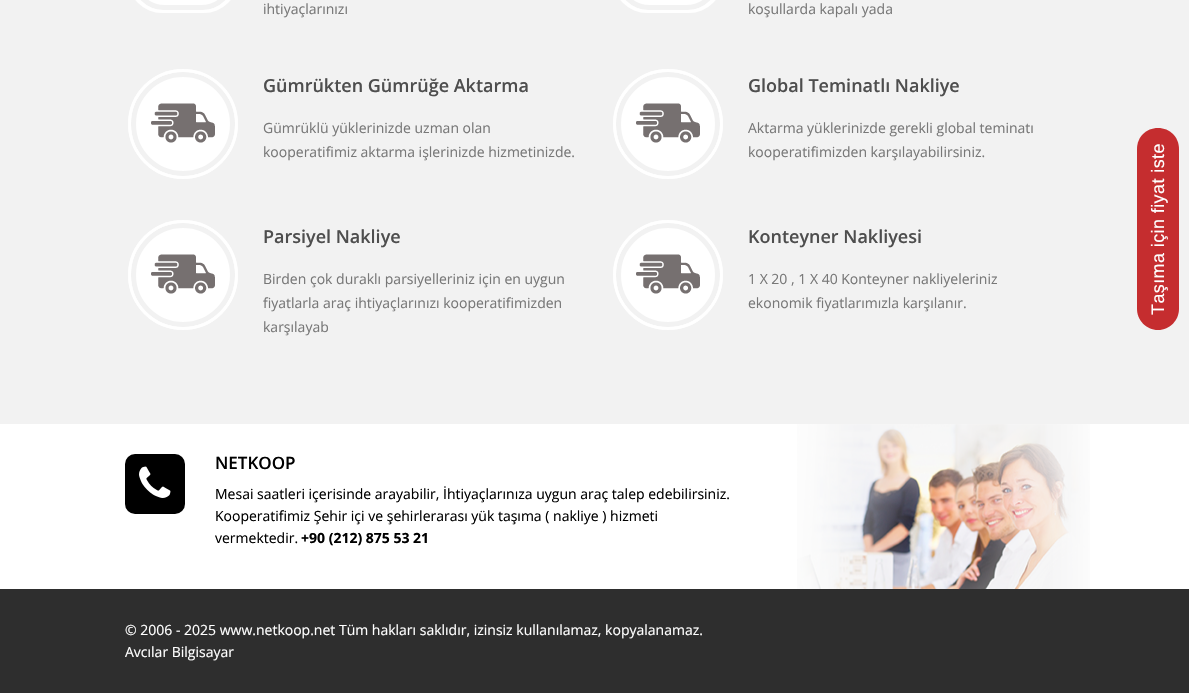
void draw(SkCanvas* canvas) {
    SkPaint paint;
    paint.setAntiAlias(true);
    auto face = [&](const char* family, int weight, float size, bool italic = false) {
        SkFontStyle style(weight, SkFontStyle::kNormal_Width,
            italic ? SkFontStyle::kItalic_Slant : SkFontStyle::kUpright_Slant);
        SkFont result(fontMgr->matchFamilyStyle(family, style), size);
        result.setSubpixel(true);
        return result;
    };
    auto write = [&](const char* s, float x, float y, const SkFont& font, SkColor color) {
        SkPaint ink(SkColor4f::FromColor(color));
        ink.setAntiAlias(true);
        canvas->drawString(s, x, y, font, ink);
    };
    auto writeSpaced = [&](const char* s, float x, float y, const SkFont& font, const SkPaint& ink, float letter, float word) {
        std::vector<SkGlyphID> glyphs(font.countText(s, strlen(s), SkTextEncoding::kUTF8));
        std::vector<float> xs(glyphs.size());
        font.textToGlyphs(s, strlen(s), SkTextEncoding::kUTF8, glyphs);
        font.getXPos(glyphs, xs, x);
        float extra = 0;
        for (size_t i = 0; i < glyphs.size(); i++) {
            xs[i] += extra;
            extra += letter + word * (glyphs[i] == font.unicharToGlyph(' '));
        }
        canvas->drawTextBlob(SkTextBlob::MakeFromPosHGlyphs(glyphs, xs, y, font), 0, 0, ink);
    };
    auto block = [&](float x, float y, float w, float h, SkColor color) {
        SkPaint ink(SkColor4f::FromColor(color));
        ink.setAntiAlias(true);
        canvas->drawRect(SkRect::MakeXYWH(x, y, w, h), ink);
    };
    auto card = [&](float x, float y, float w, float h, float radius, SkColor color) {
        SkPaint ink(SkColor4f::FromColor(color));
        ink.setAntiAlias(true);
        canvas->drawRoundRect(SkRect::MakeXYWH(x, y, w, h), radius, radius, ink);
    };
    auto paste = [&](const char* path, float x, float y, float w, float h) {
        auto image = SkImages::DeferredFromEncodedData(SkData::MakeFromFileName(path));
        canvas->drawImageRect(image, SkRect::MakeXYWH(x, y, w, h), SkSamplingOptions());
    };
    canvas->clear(SK_ColorWHITE);
    block(0, 0, 1189, 424, SkColorSetRGB(242, 242, 242));
    card(613, -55, 110, 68, 55, SK_ColorWHITE);
    paint.setStyle(SkPaint::kStroke_Style);
    paint.setStrokeWidth(5);
    paint.setColor(SkColorSetRGB(242, 242, 242));
    canvas->drawRoundRect(SkRect::MakeXYWH(618.5f, -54.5f, 99, 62), 49.5f, 49.5f, paint);
    paint.setStrokeWidth(3);
    paint.setColor(SK_ColorWHITE);
    canvas->drawRoundRect(SkRect::MakeXYWH(614.5f, -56.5f, 107, 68), 53.5f, 53.5f, paint);
    auto kFont1 = face("Open Sans", 400, 14);
    write("koşullarda kapalı yada", 748, 14, kFont1, SkColorSetRGB(120, 120, 120));
    paint.setStyle(SkPaint::kFill_Style);
    canvas->drawCircle(668, 124, 55, paint);
    paint.setStyle(SkPaint::kStroke_Style);
    paint.setStrokeWidth(5);
    paint.setColor(SkColorSetRGB(242, 242, 242));
    canvas->drawCircle(668, 124, 49.5f, paint);
    paint.setStrokeWidth(3);
    paint.setColor(SK_ColorWHITE);
    canvas->drawCircle(668, 124, 53.5f, paint);
    paste("pic1.png", 636, 103, 64, 40);
    auto kFont2 = face("Open Sans", 600, 18);
    write("Global Teminatlı Nakliye", 748, 92, kFont2, SkColorSetRGB(78, 78, 78));
    write("Aktarma yüklerinizde gerekli global teminatı", 748, 133, kFont1, SkColorSetRGB(120, 120, 120));
    write("kooperatifimizden karşılayabilirsiniz.", 748, 157, kFont1, SkColorSetRGB(120, 120, 120));
    paint.setStyle(SkPaint::kFill_Style);
    canvas->drawCircle(183, 275, 55, paint);
    paint.setStyle(SkPaint::kStroke_Style);
    paint.setStrokeWidth(5);
    paint.setColor(SkColorSetRGB(242, 242, 242));
    canvas->drawCircle(183, 275, 49.5f, paint);
    paint.setStrokeWidth(3);
    paint.setColor(SK_ColorWHITE);
    canvas->drawCircle(183, 275, 53.5f, paint);
    paste("pic1.png", 151, 254, 64, 40);
    write("Parsiyel Nakliye", 263, 243, kFont2, SkColorSetRGB(78, 78, 78));
    write("Birden çok duraklı parsiyelleriniz için en uygun", 263, 284, kFont1, SkColorSetRGB(120, 120, 120));
    write("fiyatlarla araç ihtiyaçlarınızı kooperatifimizden", 263, 308, kFont1, SkColorSetRGB(120, 120, 120));
    write("karşılayab", 263, 332, kFont1, SkColorSetRGB(120, 120, 120));
    paint.setStyle(SkPaint::kFill_Style);
    canvas->drawCircle(668, 275, 55, paint);
    paint.setStyle(SkPaint::kStroke_Style);
    paint.setStrokeWidth(5);
    paint.setColor(SkColorSetRGB(242, 242, 242));
    canvas->drawCircle(668, 275, 49.5f, paint);
    paint.setStrokeWidth(3);
    paint.setColor(SK_ColorWHITE);
    canvas->drawCircle(668, 275, 53.5f, paint);
    paste("pic1.png", 636, 254, 64, 40);
    write("Konteyner Nakliyesi", 748, 243, kFont2, SkColorSetRGB(78, 78, 78));
    write("1 X 20 , 1 X 40 Konteyner nakliyeleriniz", 748, 284, kFont1, SkColorSetRGB(120, 120, 120));
    write("ekonomik fiyatlarımızla karşılanır.", 748, 308, kFont1, SkColorSetRGB(120, 120, 120));
    paint.setStyle(SkPaint::kFill_Style);
    canvas->drawCircle(183, 124, 55, paint);
    paint.setStyle(SkPaint::kStroke_Style);
    paint.setStrokeWidth(5);
    paint.setColor(SkColorSetRGB(242, 242, 242));
    canvas->drawCircle(183, 124, 49.5f, paint);
    paint.setStrokeWidth(3);
    paint.setColor(SK_ColorWHITE);
    canvas->drawCircle(183, 124, 53.5f, paint);
    paste("pic1.png", 151, 103, 64, 40);
    write("Gümrükten Gümrüğe Aktarma", 263, 92, kFont2, SkColorSetRGB(78, 78, 78));
    write("Gümrüklü yüklerinizde uzman olan", 263, 133, kFont1, SkColorSetRGB(120, 120, 120));
    write("kooperatifimiz aktarma işlerinizde hizmetinizde.", 263, 157, kFont1, SkColorSetRGB(120, 120, 120));
    card(128, -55, 110, 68, 55, SK_ColorWHITE);
    paint.setStrokeWidth(5);
    paint.setColor(SkColorSetRGB(242, 242, 242));
    canvas->drawRoundRect(SkRect::MakeXYWH(133.5f, -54.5f, 99, 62), 49.5f, 49.5f, paint);
    paint.setStrokeWidth(3);
    paint.setColor(SK_ColorWHITE);
    canvas->drawRoundRect(SkRect::MakeXYWH(129.5f, -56.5f, 107, 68), 53.5f, 53.5f, paint);
    write("ihtiyaçlarınızı", 263, 14, kFont1, SkColorSetRGB(120, 120, 120));
    paint.setStyle(SkPaint::kFill_Style);
    paint.setColor(SkColorSetRGB(197, 45, 47));
    canvas->drawPath(SkPathBuilder().moveTo(1137, 309).lineTo(1137, 149).cubicTo(1137, 137, 1146, 128, 1158, 128).cubicTo(1170, 128, 1179, 137, 1179, 149).lineTo(1179, 309).cubicTo(1179, 320, 1170, 330, 1158, 330).cubicTo(1146, 330, 1137, 320, 1137, 309).close().detach(), paint);
    auto kFont3 = face("Liberation Sans", 400, 18);
    paint.setColor(SK_ColorWHITE);
    canvas->save();
    canvas->rotate(-90, 1164, 315);
    writeSpaced("Taşıma için fiyat iste", 1164, 315, kFont3, paint, 0.4f, 0);
    canvas->restore();
    paste("pic2.png", 797, 424, 293, 165);
    card(125, 454, 60, 60, 10, SK_ColorBLACK);
    paste("pic3.png", 139, 466, 32, 32);
    auto kFont4 = face("Open Sans", 600, 17);
    write("NETKOOP", 215, 469, kFont4, SK_ColorBLACK);
    write("Mesai saatleri içerisinde arayabilir, İhtiyaçlarınıza uygun araç talep edebilirsiniz.", 215, 499, kFont1, SK_ColorBLACK);
    write("Kooperatifimiz Şehir içi ve şehirlerarası yük taşıma ( nakliye ) hizmeti", 215, 521, kFont1, SK_ColorBLACK);
    write("vermektedir.", 215, 543, kFont1, SK_ColorBLACK);
    auto kFont5 = face("Open Sans", 700, 14);
    write("+90 (212) 875 53 21", 301, 543, kFont5, SK_ColorBLACK);
    block(0, 589, 1189, 104, SkColorSetRGB(46, 46, 46));
    write("© 2006 - 2025 www.netkoop.net Tüm hakları saklıdır, izinsiz kullanılamaz, kopyalanamaz.", 125, 635, kFont1, SK_ColorWHITE);
    write("Avcılar Bilgisayar", 125, 657, kFont1, SK_ColorWHITE);
}
